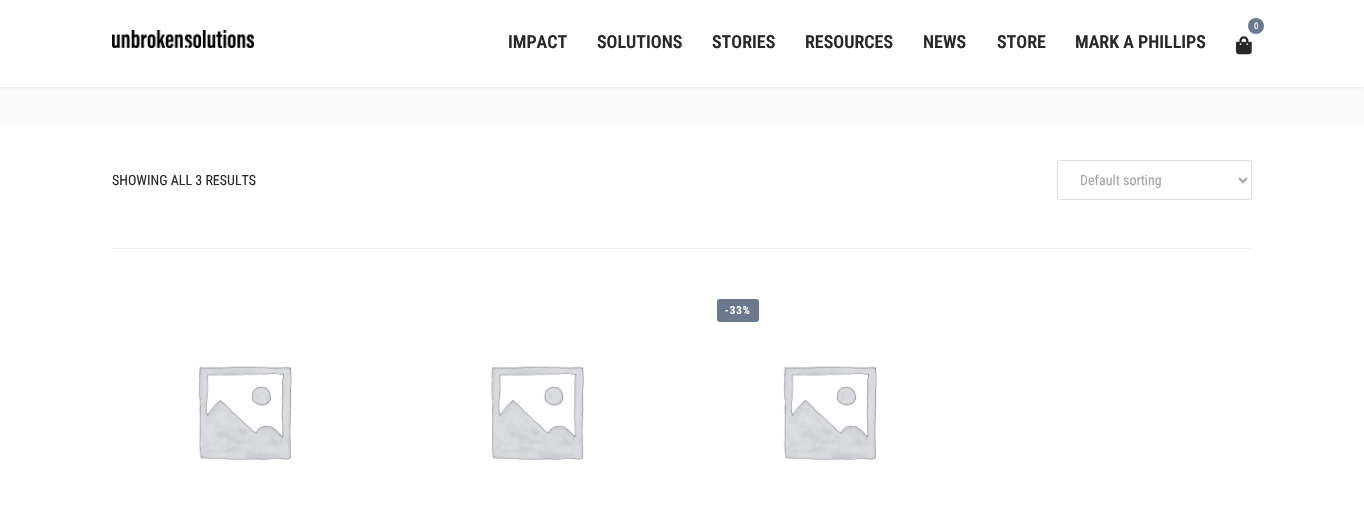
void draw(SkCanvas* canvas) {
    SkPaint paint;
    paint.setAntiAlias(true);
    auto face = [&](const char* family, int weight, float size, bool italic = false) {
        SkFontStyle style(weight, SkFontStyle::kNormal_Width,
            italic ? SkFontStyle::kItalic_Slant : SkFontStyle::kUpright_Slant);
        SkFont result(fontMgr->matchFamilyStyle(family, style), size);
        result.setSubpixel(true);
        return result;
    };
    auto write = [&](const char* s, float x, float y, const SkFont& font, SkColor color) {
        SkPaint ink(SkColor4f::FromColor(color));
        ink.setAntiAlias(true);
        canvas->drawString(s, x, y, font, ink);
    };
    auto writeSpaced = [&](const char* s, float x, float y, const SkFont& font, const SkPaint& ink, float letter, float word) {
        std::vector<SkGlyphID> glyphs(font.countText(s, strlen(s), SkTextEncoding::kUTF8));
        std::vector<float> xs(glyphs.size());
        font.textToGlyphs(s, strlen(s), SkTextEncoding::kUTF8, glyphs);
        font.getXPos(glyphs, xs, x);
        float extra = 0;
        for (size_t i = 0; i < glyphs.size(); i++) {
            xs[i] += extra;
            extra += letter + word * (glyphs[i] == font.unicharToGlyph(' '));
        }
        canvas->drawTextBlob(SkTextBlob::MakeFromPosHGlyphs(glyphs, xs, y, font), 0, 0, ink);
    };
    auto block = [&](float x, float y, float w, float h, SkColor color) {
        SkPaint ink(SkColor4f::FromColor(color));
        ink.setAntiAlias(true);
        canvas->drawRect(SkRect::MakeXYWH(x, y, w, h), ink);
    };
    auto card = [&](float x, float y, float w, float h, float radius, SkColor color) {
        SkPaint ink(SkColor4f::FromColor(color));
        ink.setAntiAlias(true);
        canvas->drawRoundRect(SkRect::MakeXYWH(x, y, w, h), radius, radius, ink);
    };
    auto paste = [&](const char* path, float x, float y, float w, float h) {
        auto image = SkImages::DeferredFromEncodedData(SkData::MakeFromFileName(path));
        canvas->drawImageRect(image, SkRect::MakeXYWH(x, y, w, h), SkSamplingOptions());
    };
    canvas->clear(SK_ColorWHITE);
    block(0, 87, 1364, 38, SkColorSetRGB(250, 250, 250));
    paint.setColor(SkColorSetARGB(26, 0, 0, 0));
    paint.setMaskFilter(SkMaskFilter::MakeBlur(kNormal_SkBlurStyle, 1.5f));
    canvas->drawRect(SkRect::MakeXYWH(0, 0, 1364, 87), paint);
    paint.setMaskFilter(nullptr);
    block(0, 0, 1364, 87, SK_ColorWHITE);
    paste("pic1.png", 112, 30, 142, 18);
    paint.setColor(SkColorSetRGB(107, 121, 143));
    canvas->drawCircle(1256, 26, 8, paint);
    auto kFont1 = face("Roboto Condensed", 400, 9);
    write("0", 1254, 29, kFont1, SK_ColorWHITE);
    paste("pic2.png", 1236, 36, 16, 19);
    auto kFont2 = face("Roboto Condensed", 600, 18);
    write("IMPACT", 508, 48, kFont2, SkColorSetRGB(40, 40, 40));
    write("SOLUTIONS", 597, 48, kFont2, SkColorSetRGB(40, 40, 40));
    write("STORIES", 712, 48, kFont2, SkColorSetRGB(40, 40, 40));
    write("RESOURCES", 805, 48, kFont2, SkColorSetRGB(40, 40, 40));
    write("NEWS", 923, 48, kFont2, SkColorSetRGB(40, 40, 40));
    write("STORE", 997, 48, kFont2, SkColorSetRGB(40, 40, 40));
    write("MARK A PHILLIPS", 1075, 48, kFont2, SkColorSetRGB(40, 40, 40));
    block(112, 248, 1140, 1, SkColorSetRGB(240, 240, 240));
    auto kFont3 = face("Roboto Condensed", 400, 14);
    write("SHOWING ALL 3 RESULTS", 112, 185, kFont3, SkColorSetRGB(40, 40, 40));
    paint.setStyle(SkPaint::kStroke_Style);
    paint.setStrokeWidth(1);
    paint.setColor(SkColorSetRGB(221, 221, 221));
    canvas->drawRoundRect(SkRect::MakeXYWH(1057.5f, 160.5f, 194, 39), 2.5f, 2.5f, paint);
    paint.setStrokeWidth(2);
    paint.setColor(SkColorSetRGB(166, 166, 166));
    canvas->drawPath(SkPathBuilder().moveTo(1239, 178).lineTo(1243, 182).lineTo(1247, 178).detach(), paint);
    write("Default sorting", 1080, 185, kFont3, SkColorSetRGB(166, 166, 166));
    card(717, 299, 42, 23, 3, SkColorSetRGB(107, 121, 143));
    auto kFont4 = face("Roboto Condensed", 600, 11);
    paint.setStyle(SkPaint::kFill_Style);
    paint.setColor(SK_ColorWHITE);
    writeSpaced("-33%", 725, 314, kFont4, paint, 1, 0);
    paste("pic3.png", 783, 366, 94, 94);
    paste("pic3.png", 198, 366, 94, 94);
    paste("pic4.png", 491, 366, 93, 94);
}
